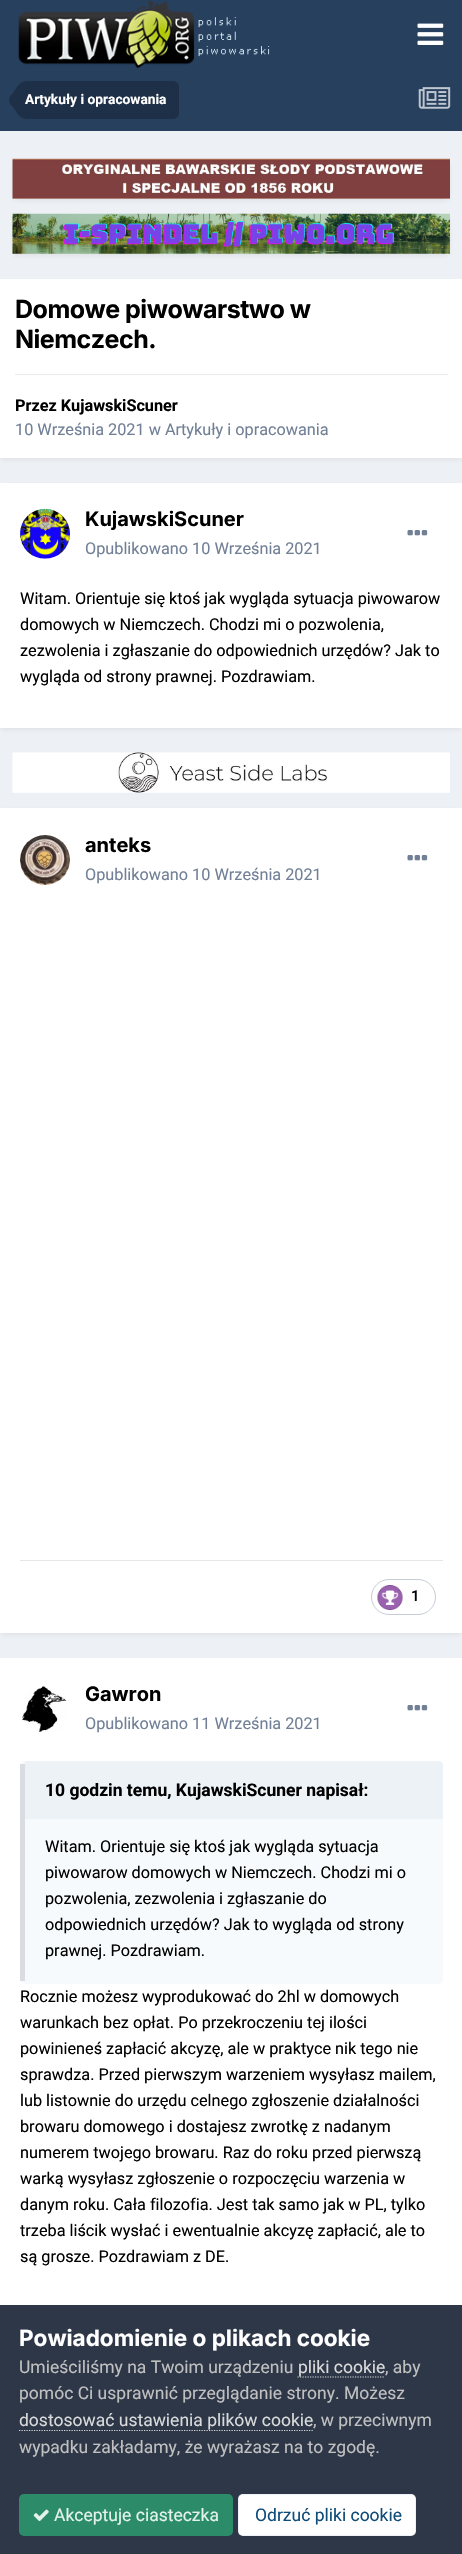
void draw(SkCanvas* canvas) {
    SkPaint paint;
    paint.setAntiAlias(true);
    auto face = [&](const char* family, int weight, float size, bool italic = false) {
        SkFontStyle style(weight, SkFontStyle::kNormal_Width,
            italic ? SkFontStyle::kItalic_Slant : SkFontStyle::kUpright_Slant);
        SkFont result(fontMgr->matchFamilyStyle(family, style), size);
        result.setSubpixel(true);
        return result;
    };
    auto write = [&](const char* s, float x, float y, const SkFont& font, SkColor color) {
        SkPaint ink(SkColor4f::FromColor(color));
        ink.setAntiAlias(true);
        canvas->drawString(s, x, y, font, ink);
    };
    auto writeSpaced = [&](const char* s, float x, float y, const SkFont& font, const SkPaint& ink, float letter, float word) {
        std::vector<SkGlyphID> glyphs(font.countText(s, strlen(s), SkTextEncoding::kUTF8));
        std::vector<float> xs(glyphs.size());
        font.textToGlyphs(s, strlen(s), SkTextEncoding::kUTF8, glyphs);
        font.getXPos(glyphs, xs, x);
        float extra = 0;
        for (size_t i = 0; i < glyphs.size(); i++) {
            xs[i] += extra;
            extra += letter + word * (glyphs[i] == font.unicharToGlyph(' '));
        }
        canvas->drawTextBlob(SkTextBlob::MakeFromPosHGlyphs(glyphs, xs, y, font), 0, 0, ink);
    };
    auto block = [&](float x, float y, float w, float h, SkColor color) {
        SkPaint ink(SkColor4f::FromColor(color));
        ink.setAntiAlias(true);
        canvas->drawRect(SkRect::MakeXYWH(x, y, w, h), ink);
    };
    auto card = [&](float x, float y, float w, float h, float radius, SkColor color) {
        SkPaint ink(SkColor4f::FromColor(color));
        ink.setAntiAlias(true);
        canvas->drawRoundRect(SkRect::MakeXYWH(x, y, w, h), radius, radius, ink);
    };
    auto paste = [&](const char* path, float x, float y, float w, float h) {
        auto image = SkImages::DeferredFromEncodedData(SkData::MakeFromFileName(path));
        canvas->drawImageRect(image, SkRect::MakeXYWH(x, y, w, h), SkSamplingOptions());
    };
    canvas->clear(SkColorSetRGB(237, 240, 244));
    block(0, 0, 462, 131, SkColorSetRGB(39, 64, 94));
    paste("pic1.png", 18, 1, 252, 67);
    paste("pic2.png", 417, 23, 27, 22);
    paint.setColor(SkColorSetRGB(29, 48, 71));
    canvas->drawPath(SkPathBuilder().moveTo(25, 81).lineTo(173, 81).cubicTo(176.5f, 81, 179, 83.5f, 179, 87).lineTo(179, 113).cubicTo(179, 116.5f, 176.5f, 119, 173, 119).lineTo(25, 119).close().detach(), paint);
    canvas->drawPath(SkPathBuilder().moveTo(25, 100).lineTo(25, 118.5f).cubicTo(19.5f, 118.5f, 16.5f, 112, 14, 108.5f).cubicTo(12, 106, 9, 103.5f, 9, 100).close().moveTo(25, 100).lineTo(9, 100).cubicTo(9, 96.5f, 12, 94, 14, 91.5f).cubicTo(16.5f, 88, 19.5f, 81.5f, 25, 81.5f).close().detach(), paint);
    auto kFont1 = face("Roboto", 700, 13.75f);
    write("Artykuły i opracowania", 25, 104, kFont1, SK_ColorWHITE);
    paste("pic3.png", 418, 87, 33, 22);
    paint.setColor(SkColorSetARGB(26, 45, 55, 72));
    paint.setMaskFilter(SkMaskFilter::MakeBlur(kNormal_SkBlurStyle, 2.5f));
    canvas->drawRoundRect(SkRect::MakeXYWH(14, 163, 435, 37), 4, 4, paint);
    paint.setMaskFilter(nullptr);
    paste("pic4.png", 12, 158, 438, 41);
    paint.setMaskFilter(SkMaskFilter::MakeBlur(kNormal_SkBlurStyle, 2.5f));
    canvas->drawRoundRect(SkRect::MakeXYWH(14, 218, 435, 37), 4, 4, paint);
    paint.setMaskFilter(nullptr);
    paste("pic5.png", 12, 213, 438, 41);
    paint.setMaskFilter(SkMaskFilter::MakeBlur(kNormal_SkBlurStyle, 2.5f));
    canvas->drawRect(SkRect::MakeXYWH(1, 283, 460, 176), paint);
    paint.setMaskFilter(nullptr);
    block(0, 279, 462, 179, SK_ColorWHITE);
    auto kFont2 = face("Inter", 700, 25);
    paint.setColor(SK_ColorBLACK);
    writeSpaced("Domowe piwowarstwo w", 15, 318, kFont2, paint, -0.5f, 0);
    writeSpaced("Niemczech.", 15, 348, kFont2, paint, -0.5f, 0);
    block(15, 374, 433, 1, SkColorSetRGB(235, 235, 235));
    auto kFont3 = face("Roboto", 700, 16.25f);
    write("Przez KujawskiScuner", 15, 411, kFont3, SK_ColorBLACK);
    auto kFont4 = face("Roboto", 400, 16.25f);
    write("10 Września 2021 w Artykuły i opracowania", 15, 435, kFont4, SkColorSetRGB(113, 128, 150));
    paint.setColor(SkColorSetARGB(26, 45, 55, 72));
    paint.setMaskFilter(SkMaskFilter::MakeBlur(kNormal_SkBlurStyle, 2.5f));
    canvas->drawRect(SkRect::MakeXYWH(1, 486, 460, 243), paint);
    paint.setMaskFilter(nullptr);
    block(0, 483, 462, 245, SK_ColorWHITE);
    paste("pic6.png", 20, 508, 50, 51);
    auto kFont5 = face("Inter", 700, 20);
    write("KujawskiScuner", 85, 526, kFont5, SK_ColorBLACK);
    write("Opublikowano 10 Września 2021", 85, 554, kFont4, SkColorSetRGB(113, 128, 150));
    paste("pic7.png", 407, 530, 21, 6);
    write("Witam. Orientuje się ktoś jak wygląda sytuacja piwowarow", 20, 604, kFont4, SK_ColorBLACK);
    write("domowych w Niemczech. Chodzi mi o pozwolenia,", 20, 630, kFont4, SK_ColorBLACK);
    write("zezwolenia i zgłaszanie do odpowiednich urzędów? Jak to", 20, 656, kFont4, SK_ColorBLACK);
    write("wygląda od strony prawnej. Pozdrawiam.", 20, 682, kFont4, SK_ColorBLACK);
    block(13, 792, 437, 1, SkColorSetRGB(247, 250, 252));
    paste("pic8.png", 12, 752, 438, 41);
    paint.setMaskFilter(SkMaskFilter::MakeBlur(kNormal_SkBlurStyle, 2.5f));
    canvas->drawRect(SkRect::MakeXYWH(1, 811, 460, 823), paint);
    paint.setMaskFilter(nullptr);
    block(0, 808, 462, 825, SK_ColorWHITE);
    paste("pic9.png", 20, 835, 50, 50);
    write("anteks", 85, 852, kFont5, SK_ColorBLACK);
    write("Opublikowano 10 Września 2021", 85, 880, kFont4, SkColorSetRGB(113, 128, 150));
    paste("pic7.png", 407, 855, 21, 6);
    block(20, 1560, 423, 1, SkColorSetRGB(230, 230, 230));
    paint.setStyle(SkPaint::kStroke_Style);
    paint.setStrokeWidth(1);
    paint.setColor(SkColorSetRGB(198, 204, 213));
    canvas->drawRoundRect(SkRect::MakeXYWH(371.5f, 1579.5f, 64, 35), 17.5f, 17.5f, paint);
    paste("pic10.png", 377, 1585, 26, 25);
    auto kFont6 = face("Roboto", 500, 15);
    write("1", 411, 1601, kFont6, SK_ColorBLACK);
    block(0, 1658, 462, 647, SK_ColorWHITE);
    paste("pic11.png", 21, 1686, 46, 46);
    write("Gawron", 85, 1701, kFont5, SK_ColorBLACK);
    write("Opublikowano 11 Września 2021", 85, 1729, kFont4, SkColorSetRGB(113, 128, 150));
    paste("pic7.png", 407, 1705, 21, 6);
    card(20, 1761, 423, 223, 5, SkColorSetRGB(247, 250, 252));
    block(20, 1764, 5, 217, SkColorSetRGB(217, 221, 225));
    paint.setStyle(SkPaint::kFill_Style);
    paint.setColor(SkColorSetRGB(237, 242, 247));
    canvas->drawPath(SkPathBuilder().moveTo(25, 1761).lineTo(438, 1761).cubicTo(441, 1761, 443, 1763, 443, 1766).lineTo(443, 1819).lineTo(25, 1819).close().detach(), paint);
    auto kFont7 = face("Roboto", 700, 17.5f);
    write("10 godzin temu, KujawskiScuner napisał:", 45, 1796, kFont7, SK_ColorBLACK);
    write("Witam. Orientuje się ktoś jak wygląda sytuacja", 45, 1852, kFont4, SK_ColorBLACK);
    write("piwowarow domowych w Niemczech. Chodzi mi o", 45, 1878, kFont4, SK_ColorBLACK);
    write("pozwolenia, zezwolenia i zgłaszanie do", 45, 1904, kFont4, SK_ColorBLACK);
    write("odpowiednich urzędów? Jak to wygląda od strony", 45, 1930, kFont4, SK_ColorBLACK);
    write("prawnej. Pozdrawiam.", 45, 1956, kFont4, SK_ColorBLACK);
    write("Rocznie możesz wyprodukować do 2hl w domowych", 20, 2002, kFont4, SK_ColorBLACK);
    write("warunkach bez opłat. Po przekroczeniu tej ilości", 20, 2028, kFont4, SK_ColorBLACK);
    write("powinieneś zapłacić akcyzę, ale w praktyce nik tego nie", 20, 2054, kFont4, SK_ColorBLACK);
    write("sprawdza. Przed pierwszym warzeniem wysyłasz mailem,", 20, 2080, kFont4, SK_ColorBLACK);
    write("lub listownie do urzędu celnego zgłoszenie działalności", 20, 2106, kFont4, SK_ColorBLACK);
    write("browaru domowego i dostajesz zwrotkę z nadanym", 20, 2132, kFont4, SK_ColorBLACK);
    write("numerem twojego browaru. Raz do roku przed pierwszą", 20, 2158, kFont4, SK_ColorBLACK);
    write("warką wysyłasz zgłoszenie o rozpoczęciu warzenia w", 20, 2184, kFont4, SK_ColorBLACK);
    write("danym roku. Cała filozofia. Jest tak samo jak w PL, tylko", 20, 2210, kFont4, SK_ColorBLACK);
    write("trzeba liścik wysłać i ewentualnie akcyzę zapłacić, ale to", 20, 2236, kFont4, SK_ColorBLACK);
    write("są grosze. Pozdrawiam z DE.", 20, 2262, kFont4, SK_ColorBLACK);
    block(0, 2305, 462, 249, SkColorSetRGB(45, 55, 72));
    auto kFont8 = face("Inter", 700, 22.5f);
    write("Powiadomienie o plikach cookie", 19, 2346, kFont8, SK_ColorWHITE);
    auto kFont9 = face("Roboto", 400, 17.5f);
    write("Umieściliśmy na Twoim urządzeniu", 19, 2373, kFont9, SkColorSetRGB(192, 192, 192));
    paint.setStyle(SkPaint::kStroke_Style);
    paint.setStrokeWidth(1.2f);
    paint.setColor(SkColorSetRGB(218, 218, 218));
    paint.setPathEffect(SkDashPathEffect::Make({{1.25f, 1.25f}}, 0));
    canvas->drawPath(SkPathBuilder().moveTo(297.5f, 2377).lineTo(385, 2377).detach(), paint);
    paint.setPathEffect(nullptr);
    write("pliki cookie", 298, 2373, kFont9, SkColorSetRGB(218, 218, 218));
    write(", aby", 385, 2373, kFont9, SkColorSetRGB(192, 192, 192));
    write("pomóc Ci usprawnić przeglądanie strony. Możesz", 19, 2399, kFont9, SkColorSetRGB(192, 192, 192));
    paint.setPathEffect(SkDashPathEffect::Make({{1.25f, 1.25f}}, 0));
    canvas->drawPath(SkPathBuilder().moveTo(19, 2430.5f).lineTo(314, 2430.5f).detach(), paint);
    paint.setPathEffect(nullptr);
    write("dostosować ustawienia plików cookie", 19, 2426, kFont9, SkColorSetRGB(218, 218, 218));
    write(", w przeciwnym", 313, 2426, kFont9, SkColorSetRGB(192, 192, 192));
    write("wypadku zakładamy, że wyrażasz na to zgodę.", 19, 2453, kFont9, SkColorSetRGB(192, 192, 192));
    card(19, 2494, 214, 42, 5, SkColorSetRGB(44, 140, 105));
    paste("pic12.png", 33, 2509, 16, 13);
    write("Akceptuje ciasteczka", 54, 2521, kFont9, SkColorSetRGB(227, 243, 236));
    card(238, 2494, 178, 42, 5, SK_ColorWHITE);
    paint.setStrokeWidth(1);
    paint.setColor(SkColorSetARGB(18, 14, 76, 121));
    canvas->drawRoundRect(SkRect::MakeXYWH(238.5f, 2494.5f, 177, 41), 4.5f, 4.5f, paint);
    write("Odrzuć pliki cookie", 255, 2521, kFont9, SkColorSetRGB(14, 76, 121));
}
